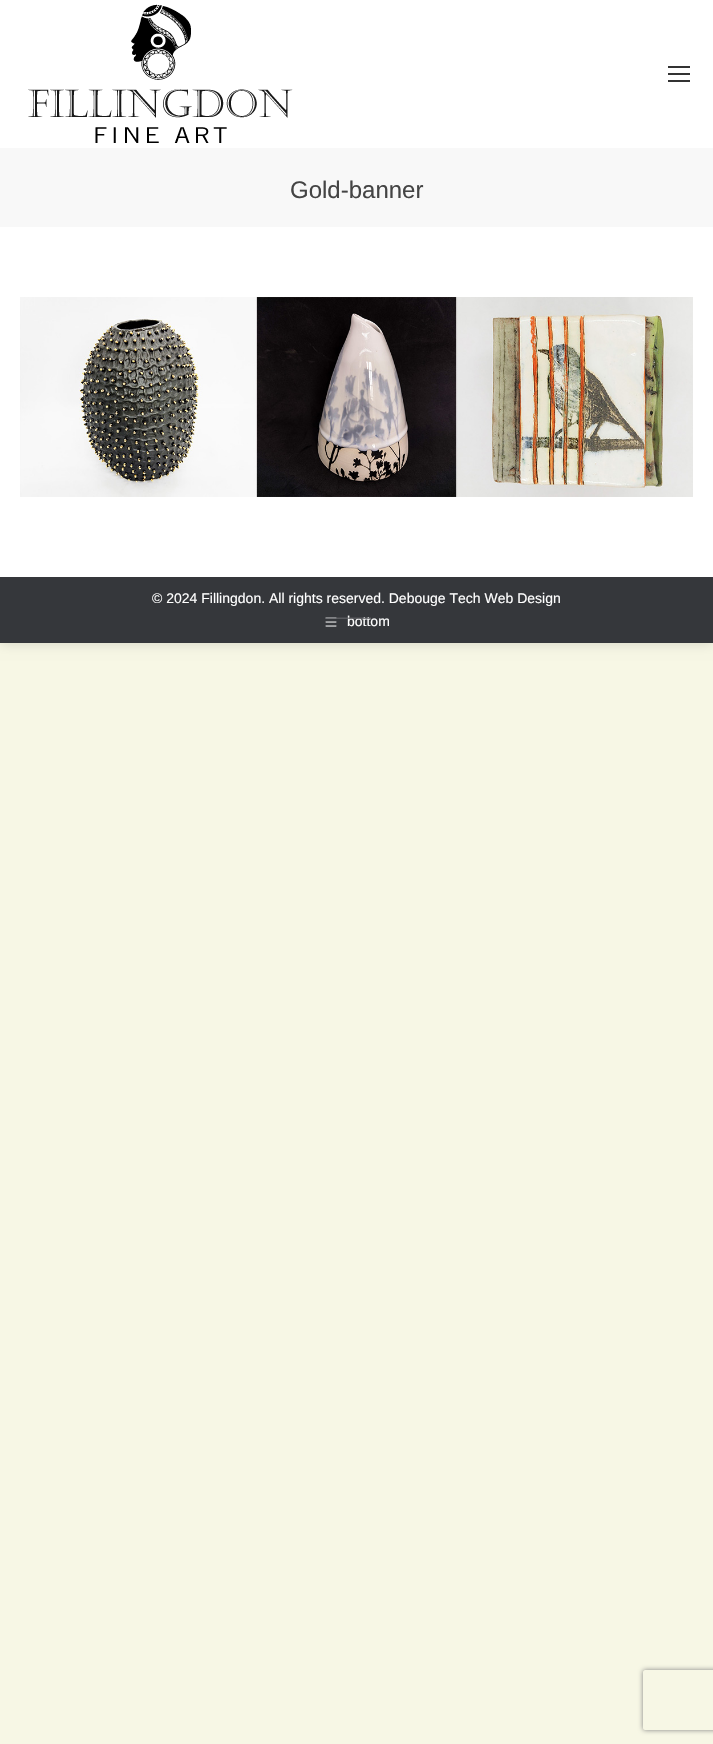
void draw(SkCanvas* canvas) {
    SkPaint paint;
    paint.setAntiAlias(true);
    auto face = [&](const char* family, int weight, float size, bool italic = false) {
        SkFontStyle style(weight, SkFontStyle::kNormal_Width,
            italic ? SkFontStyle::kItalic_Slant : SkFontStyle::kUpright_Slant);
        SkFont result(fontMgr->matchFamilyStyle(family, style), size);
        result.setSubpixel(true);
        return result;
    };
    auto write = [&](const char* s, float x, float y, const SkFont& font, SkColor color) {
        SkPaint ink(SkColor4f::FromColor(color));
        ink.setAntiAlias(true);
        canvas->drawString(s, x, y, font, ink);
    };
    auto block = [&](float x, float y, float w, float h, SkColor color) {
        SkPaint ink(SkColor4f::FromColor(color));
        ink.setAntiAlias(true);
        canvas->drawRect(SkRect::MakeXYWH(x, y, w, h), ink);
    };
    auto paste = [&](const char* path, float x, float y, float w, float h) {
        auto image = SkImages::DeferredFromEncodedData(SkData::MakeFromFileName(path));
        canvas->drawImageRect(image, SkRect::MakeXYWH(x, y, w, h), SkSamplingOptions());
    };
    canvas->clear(SkColorSetRGB(247, 247, 229));
    paint.setColor(SkColorSetARGB(38, 0, 0, 0));
    paint.setMaskFilter(SkMaskFilter::MakeBlur(kNormal_SkBlurStyle, 6));
    canvas->drawRect(SkRect::MakeXYWH(0, 0, 713, 643), paint);
    paint.setMaskFilter(nullptr);
    block(0, 0, 713, 577, SK_ColorWHITE);
    paste("pic1.png", 28, 4, 265, 139);
    block(668, 66, 22, 2, SkColorSetRGB(51, 51, 51));
    block(668, 73, 22, 2, SkColorSetRGB(51, 51, 51));
    block(668, 80, 22, 2, SkColorSetRGB(51, 51, 51));
    block(0, 148, 713, 79, SkColorSetRGB(248, 248, 248));
    auto kFont1 = face("Arimo", 400, 24);
    write("Gold-banner", 290, 198, kFont1, SkColorSetRGB(68, 68, 68));
    paste("pic2.png", 20, 297, 673, 200);
    block(0, 577, 713, 66, SkColorSetRGB(53, 55, 59));
    auto kFont2 = face("Arimo", 400, 14);
    write("© 2024 Fillingdon. All rights reserved. Debouge Tech Web Design", 152, 603, kFont2, SK_ColorWHITE);
    paste("pic3.png", 325, 617, 12, 10);
    write("bottom", 347, 626, kFont2, SK_ColorWHITE);
    auto kFont3 = face("Arimo", 400, 15);
    write("———", 326, 622, kFont3, SkColorSetRGB(100, 101, 105));
    canvas->save();
    canvas->clipPath(SkPathBuilder(SkPathFillType::kEvenOdd).moveTo(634, 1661).lineTo(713, 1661).lineTo(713, 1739).lineTo(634, 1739).close().moveTo(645, 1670).lineTo(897, 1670).cubicTo(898, 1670, 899, 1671, 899, 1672).lineTo(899, 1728).cubicTo(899, 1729, 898, 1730, 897, 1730).lineTo(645, 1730).cubicTo(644, 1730, 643, 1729, 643, 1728).lineTo(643, 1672).cubicTo(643, 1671, 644, 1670, 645, 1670).close().detach(), true);
    paint.setColor(SkColorSetRGB(128, 128, 128));
    paint.setMaskFilter(SkMaskFilter::MakeBlur(kNormal_SkBlurStyle, 2.5f));
    canvas->drawRoundRect(SkRect::MakeXYWH(643, 1670, 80, 60), 2, 2, paint);
    paint.setMaskFilter(nullptr);
    canvas->restore();
}
